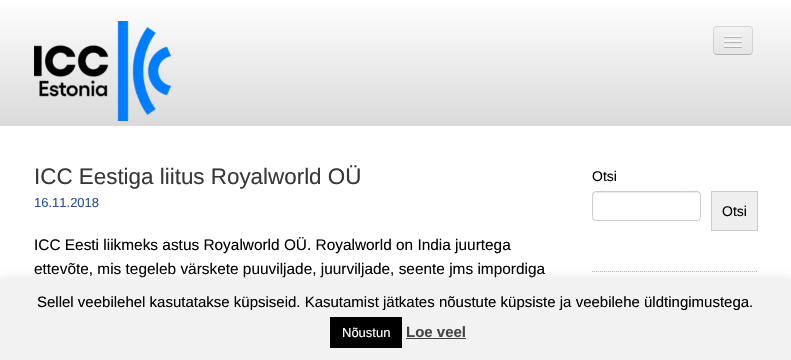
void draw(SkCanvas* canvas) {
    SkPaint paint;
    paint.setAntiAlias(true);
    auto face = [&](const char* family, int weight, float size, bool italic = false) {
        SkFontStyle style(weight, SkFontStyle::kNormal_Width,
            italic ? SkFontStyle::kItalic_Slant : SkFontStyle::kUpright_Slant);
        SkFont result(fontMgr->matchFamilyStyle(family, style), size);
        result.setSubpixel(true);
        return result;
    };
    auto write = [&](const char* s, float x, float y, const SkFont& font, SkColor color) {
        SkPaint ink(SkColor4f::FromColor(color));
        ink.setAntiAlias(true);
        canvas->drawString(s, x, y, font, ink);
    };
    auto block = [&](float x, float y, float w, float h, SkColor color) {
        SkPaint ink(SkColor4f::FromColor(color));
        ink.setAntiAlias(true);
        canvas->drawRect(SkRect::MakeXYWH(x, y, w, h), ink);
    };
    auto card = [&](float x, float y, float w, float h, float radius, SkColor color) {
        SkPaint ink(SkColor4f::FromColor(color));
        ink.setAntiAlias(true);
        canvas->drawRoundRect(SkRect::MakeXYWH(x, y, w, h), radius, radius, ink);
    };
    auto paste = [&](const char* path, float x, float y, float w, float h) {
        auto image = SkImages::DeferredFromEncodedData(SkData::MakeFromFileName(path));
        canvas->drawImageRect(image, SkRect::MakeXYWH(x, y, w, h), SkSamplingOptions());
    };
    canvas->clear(SK_ColorWHITE);
    {
        const SkColor colors[] = {SK_ColorWHITE, SkColorSetRGB(218, 218, 218)};
        const float stops[] = {0, 1};
        const SkPoint ends[] = {{396, -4}, {396, 126}};
        paint.setShader(SkGradientShader::MakeLinear(ends, colors, stops, 2, SkTileMode::kClamp));
        paint.setAlpha(255);
    }
    canvas->drawRect(SkRect::MakeXYWH(0, 5, 791, 121), paint);
    paste("pic1.png", 34, 21, 137, 100);
    card(713, 26, 40, 29, 4, SkColorSetRGB(237, 237, 237));
    canvas->save();
    canvas->clipPath(SkPathBuilder().moveTo(717, 26).lineTo(749, 26).cubicTo(751, 26, 753, 28, 753, 30).lineTo(753, 51).cubicTo(753, 53, 751, 55, 749, 55).lineTo(717, 55).cubicTo(715, 55, 713, 53, 713, 51).lineTo(713, 30).cubicTo(713, 28, 715, 26, 717, 26).close().detach(), true);
    {
        const SkColor colors[] = {SkColorSetRGB(242, 242, 242), SkColorSetRGB(229, 229, 229)};
        const float stops[] = {0, 1};
        const SkPoint ends[] = {{733, 27}, {733, 54}};
        paint.setShader(SkGradientShader::MakeLinear(ends, colors, stops, 2, SkTileMode::kClamp));
        paint.setAlpha(255);
    }
    canvas->drawRect(SkRect::MakeXYWH(713, 27, 40, 27), paint);
    canvas->restore();
    paint.setStyle(SkPaint::kStroke_Style);
    paint.setStrokeWidth(1);
    paint.setShader(nullptr);
    paint.setColor(SkColorSetRGB(178, 178, 178));
    canvas->drawPath(SkPathBuilder().moveTo(751.5f, 53.5f).cubicTo(751, 54, 750, 54.5f, 749, 54.5f).lineTo(717, 54.5f).cubicTo(716, 54.5f, 715, 54, 714.5f, 53.5f).detach(), paint);
    paint.setColor(SkColorSetARGB(26, 0, 0, 0));
    canvas->drawPath(SkPathBuilder().moveTo(714.5f, 53.5f).cubicTo(714, 53, 713.5f, 52, 713.5f, 51).lineTo(713.5f, 30).cubicTo(713.5f, 29, 714, 28, 714.5f, 27.5f).cubicTo(715, 27, 716, 26.5f, 717, 26.5f).lineTo(749, 26.5f).cubicTo(750, 26.5f, 751, 27, 751.5f, 27.5f).cubicTo(752, 28, 752.5f, 29, 752.5f, 30).lineTo(752.5f, 51).cubicTo(752.5f, 52, 752, 53, 751.5f, 53.5f).detach(), paint);
    paint.setStyle(SkPaint::kFill_Style);
    paint.setColor(SkColorSetRGB(178, 178, 178));
    canvas->drawPath(SkPathBuilder().moveTo(724, 36.5f).cubicTo(723, 38.5f, 727.5f, 38, 727.5f, 38).lineTo(738.5f, 38).cubicTo(738.5f, 38, 743, 38.5f, 742, 36.5f).cubicTo(741, 37.5f, 734.5f, 37, 733, 37).cubicTo(731.5f, 37, 725, 37.5f, 724, 36.5f).close().detach(), paint);
    card(724, 35, 18, 2, 1, SkColorSetRGB(245, 245, 245));
    paint.setColor(SkColorSetRGB(176, 176, 176));
    canvas->drawPath(SkPathBuilder().moveTo(724, 41.5f).cubicTo(723, 43.5f, 727.5f, 43, 727.5f, 43).lineTo(738.5f, 43).cubicTo(738.5f, 43, 743, 43.5f, 742, 41.5f).cubicTo(741, 42.5f, 734.5f, 42, 733, 42).cubicTo(731.5f, 42, 725, 42.5f, 724, 41.5f).close().detach(), paint);
    card(724, 40, 18, 2, 1, SkColorSetRGB(245, 245, 245));
    paint.setColor(SkColorSetRGB(174, 174, 174));
    canvas->drawPath(SkPathBuilder().moveTo(724, 46.5f).cubicTo(723, 48.5f, 727.5f, 48, 727.5f, 48).lineTo(738.5f, 48).cubicTo(738.5f, 48, 743, 48.5f, 742, 46.5f).cubicTo(741, 47.5f, 734.5f, 47, 733, 47).cubicTo(731.5f, 47, 725, 47.5f, 724, 46.5f).close().detach(), paint);
    card(724, 45, 18, 2, 1, SkColorSetRGB(245, 245, 245));
    auto kFont1 = face("Liberation Sans", 400, 22.4f);
    write("ICC Eestiga liitus Royalworld OÜ", 34, 184, kFont1, SkColorSetRGB(56, 56, 56));
    auto kFont2 = face("Liberation Sans", 400, 13);
    write("16.11.2018", 34, 207, kFont2, SkColorSetRGB(39, 84, 156));
    auto kFont3 = face("Liberation Sans", 400, 15.4f);
    write("ICC Eesti liikmeks astus Royalworld OÜ. Royalworld on India juurtega", 34, 250, kFont3, SK_ColorBLACK);
    write("ettevõte, mis tegeleb värskete puuviljade, juurviljade, seente jms impordiga", 34, 274, kFont3, SK_ColorBLACK);
    paint.setStyle(SkPaint::kStroke_Style);
    paint.setColor(SkColorSetRGB(185, 185, 185));
    paint.setPathEffect(SkDashPathEffect::Make({{1, 1}}, 0));
    canvas->drawPath(SkPathBuilder().moveTo(592, 271.5f).lineTo(758, 271.5f).detach(), paint);
    paint.setPathEffect(nullptr);
    auto kFont4 = face("Liberation Sans", 400, 14);
    write("Otsi", 592, 181, kFont4, SK_ColorBLACK);
    paint.setStyle(SkPaint::kFill_Style);
    paint.setColor(SkColorSetRGB(236, 236, 236));
    canvas->drawPath(SkPathBuilder().moveTo(596, 193).lineTo(697, 193).cubicTo(699, 193, 700, 194, 700, 196).cubicTo(700, 187, 683, 192, 680, 192).lineTo(613, 192).cubicTo(610, 192, 593, 187, 593, 196).cubicTo(593, 194, 594, 193, 596, 193).close().detach(), paint);
    paint.setStyle(SkPaint::kStroke_Style);
    paint.setColor(SkColorSetRGB(204, 204, 204));
    canvas->drawRoundRect(SkRect::MakeXYWH(592.5f, 191.5f, 108, 29), 3.5f, 3.5f, paint);
    paint.setStyle(SkPaint::kFill_Style);
    paint.setColor(SkColorSetRGB(239, 239, 239));
    canvas->drawRect(SkRect::MakeXYWH(711.5f, 191.5f, 46, 39), paint);
    paint.setStyle(SkPaint::kStroke_Style);
    paint.setColor(SkColorSetRGB(204, 204, 204));
    canvas->drawRect(SkRect::MakeXYWH(711.5f, 191.5f, 46, 39), paint);
    write("Otsi", 722, 216, kFont4, SK_ColorBLACK);
    paint.setStyle(SkPaint::kFill_Style);
    paint.setColor(SkColorSetARGB(77, 172, 171, 171));
    paint.setMaskFilter(SkMaskFilter::MakeBlur(kNormal_SkBlurStyle, 5));
    canvas->drawRect(SkRect::MakeXYWH(0, 278, 791, 81), paint);
    paint.setMaskFilter(nullptr);
    block(0, 279, 791, 81, SkColorSetRGB(242, 242, 242));
    auto kFont5 = face("Liberation Sans", 400, 15);
    write("Sellel veebilehel kasutatakse küpsiseid. Kasutamist jätkates nõustute küpsiste ja veebilehe üldtingimustega.", 37, 307, kFont5, SK_ColorBLACK);
    block(330, 317, 72, 31, SK_ColorBLACK);
    write("Nõustun", 342, 337, kFont2, SK_ColorWHITE);
    auto kFont6 = face("Liberation Sans", 700, 15);
    write("Loe veel", 406, 337, kFont6, SkColorSetRGB(68, 68, 68));
    block(406, 338, 60, 1, SkColorSetRGB(68, 68, 68));
}
